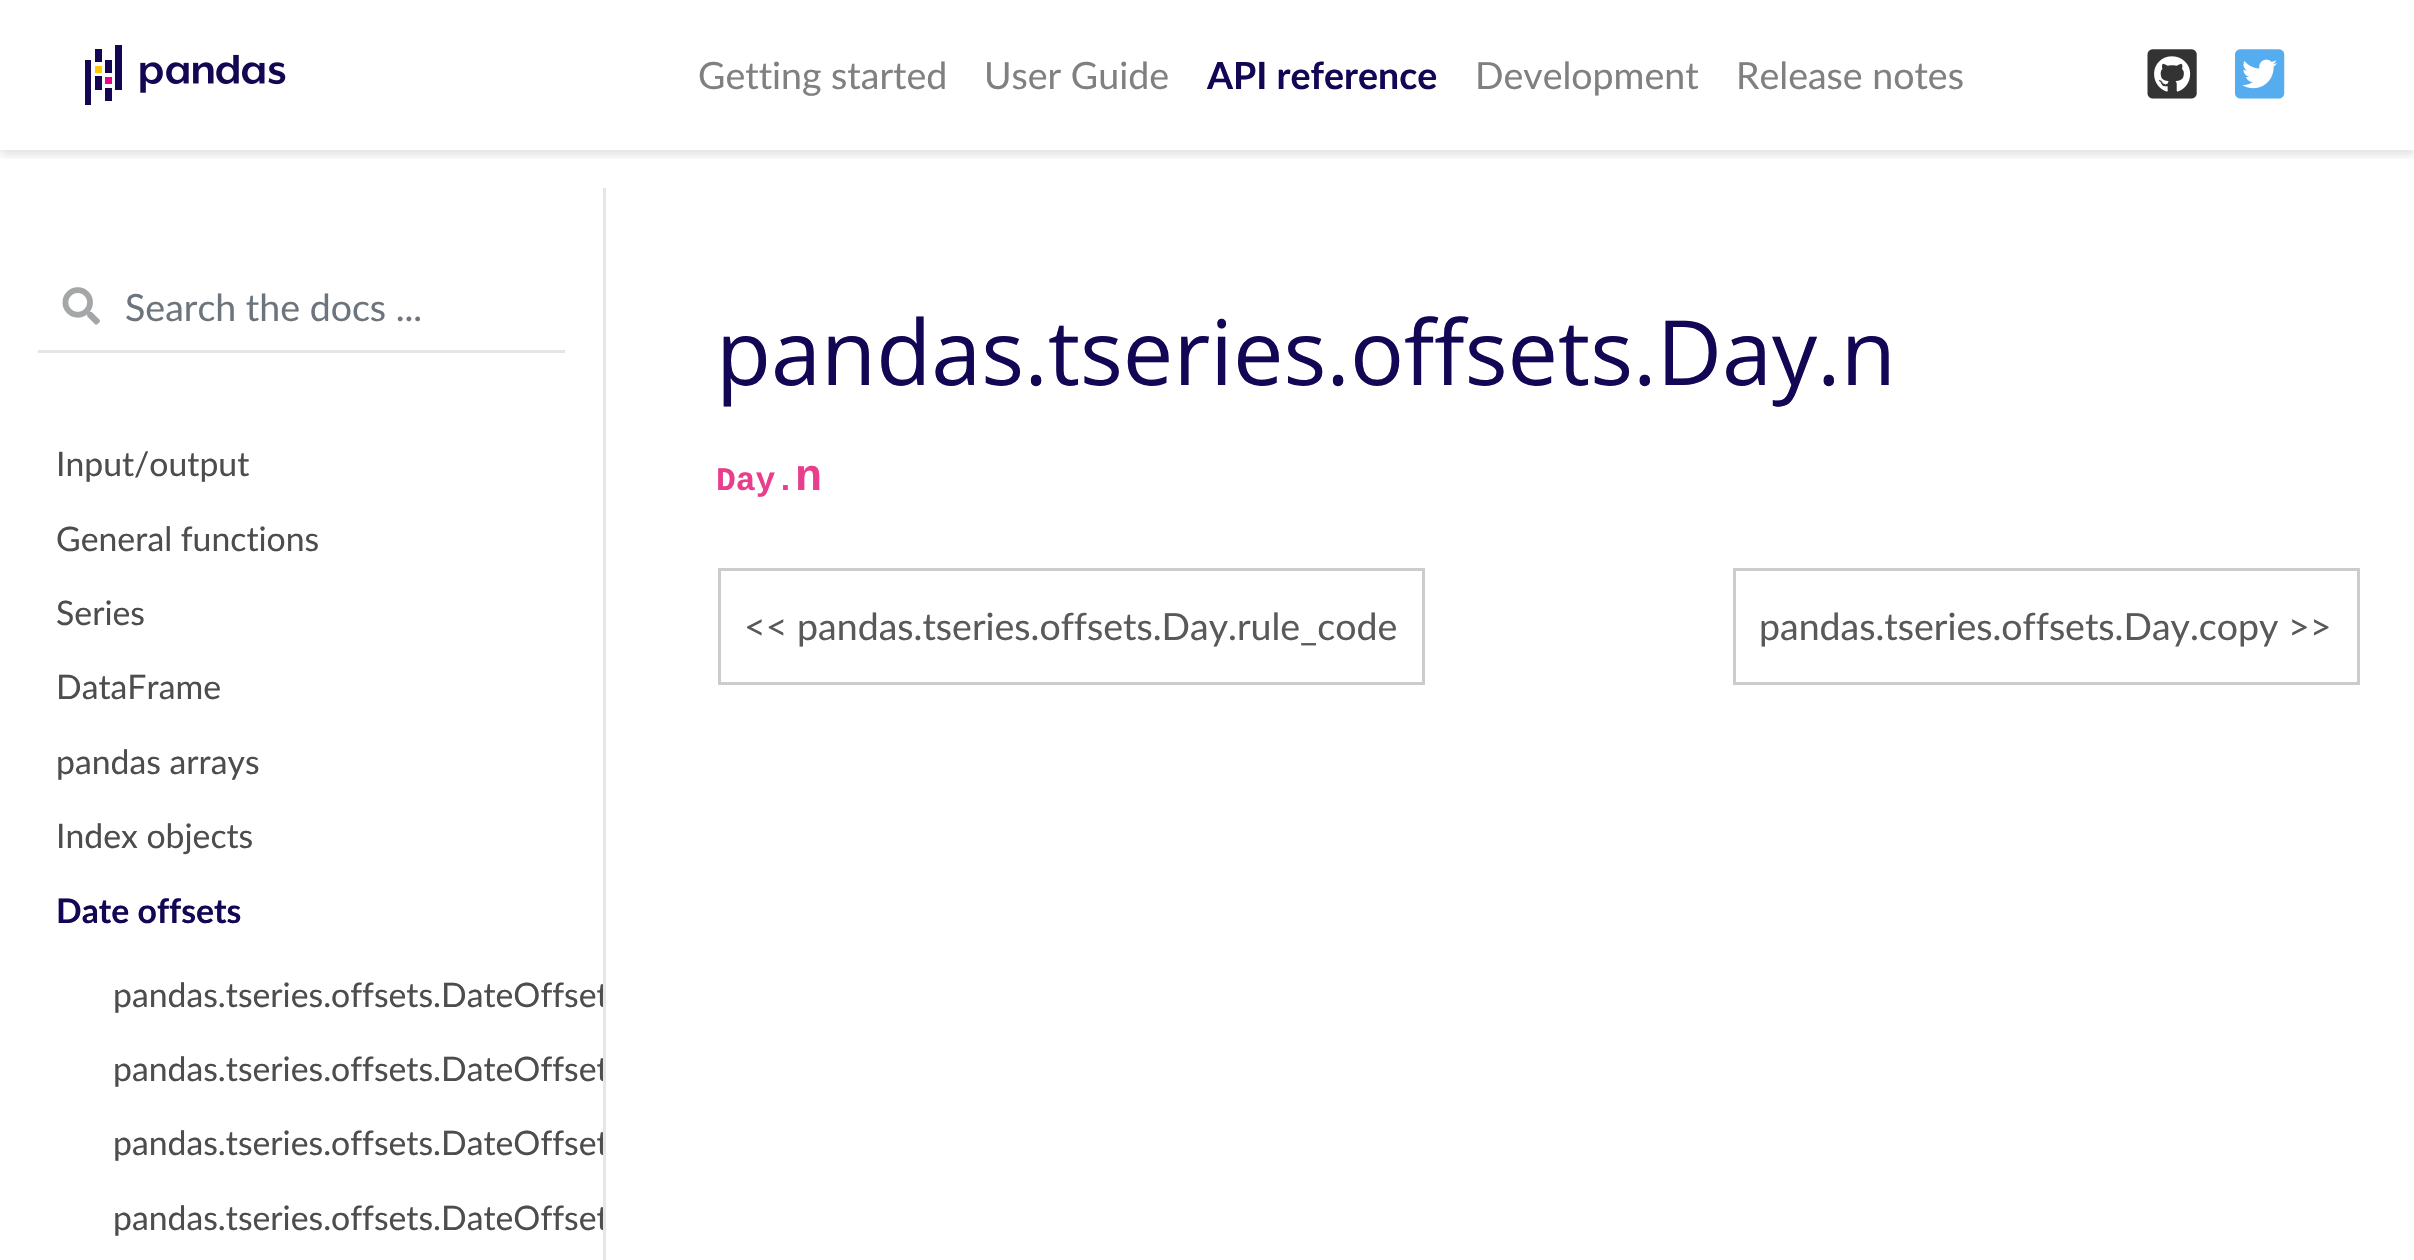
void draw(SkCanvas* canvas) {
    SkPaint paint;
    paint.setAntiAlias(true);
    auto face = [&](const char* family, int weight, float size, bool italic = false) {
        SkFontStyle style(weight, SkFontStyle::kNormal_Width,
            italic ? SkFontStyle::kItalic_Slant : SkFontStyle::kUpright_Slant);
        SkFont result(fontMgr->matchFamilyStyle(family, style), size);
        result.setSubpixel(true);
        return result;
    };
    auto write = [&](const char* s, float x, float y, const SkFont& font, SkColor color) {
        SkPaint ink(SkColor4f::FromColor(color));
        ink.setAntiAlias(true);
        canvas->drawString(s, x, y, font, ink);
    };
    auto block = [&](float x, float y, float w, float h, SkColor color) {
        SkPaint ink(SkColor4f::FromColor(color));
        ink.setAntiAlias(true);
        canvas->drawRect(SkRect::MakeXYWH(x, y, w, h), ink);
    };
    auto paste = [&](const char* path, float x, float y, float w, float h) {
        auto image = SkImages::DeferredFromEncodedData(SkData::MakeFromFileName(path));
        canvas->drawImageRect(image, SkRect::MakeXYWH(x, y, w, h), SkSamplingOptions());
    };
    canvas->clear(SK_ColorWHITE);
    canvas->save();
    canvas->clipRect(SkRect::MakeXYWH(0, 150, 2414, 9));
    paint.setColor(SkColorSetARGB(28, 0, 0, 0));
    paint.setMaskFilter(SkMaskFilter::MakeBlur(kNormal_SkBlurStyle, 4.5f));
    canvas->drawRect(SkRect::MakeXYWH(0, 5, 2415, 150), paint);
    paint.setMaskFilter(nullptr);
    canvas->restore();
    paste("pic1.png", 85, 45, 201, 60);
    auto kFont1 = face("Lato", 400, 37.5f);
    write("Getting started", 698, 89, kFont1, SkColorSetRGB(128, 128, 128));
    write("User Guide", 984, 89, kFont1, SkColorSetRGB(128, 128, 128));
    auto kFont2 = face("Lato", 700, 37.5f);
    write("API reference", 1207, 89, kFont2, SkColorSetRGB(19, 6, 84));
    write("Development", 1475, 89, kFont1, SkColorSetRGB(128, 128, 128));
    write("Release notes", 1736, 89, kFont1, SkColorSetRGB(128, 128, 128));
    paste("pic2.png", 2147, 49, 50, 50);
    paste("pic3.png", 2235, 49, 50, 50);
    block(603, 188, 3, 1072, SkColorSetRGB(230, 230, 230));
    paste("pic4.png", 62, 287, 38, 38);
    block(38, 350, 527, 3, SkColorSetRGB(229, 229, 229));
    write("Search the docs ...", 125, 321, kFont1, SkColorSetRGB(108, 117, 125));
    auto kFont3 = face("Lato", 400, 33.75f);
    write("Input/output", 56, 476, kFont3, SkColorSetRGB(77, 77, 77));
    write("General functions", 56, 551, kFont3, SkColorSetRGB(77, 77, 77));
    write("Series", 56, 625, kFont3, SkColorSetRGB(77, 77, 77));
    write("DataFrame", 56, 699, kFont3, SkColorSetRGB(77, 77, 77));
    write("pandas arrays", 56, 774, kFont3, SkColorSetRGB(77, 77, 77));
    write("Index objects", 56, 848, kFont3, SkColorSetRGB(77, 77, 77));
    auto kFont4 = face("Lato", 700, 33.75f);
    write("Date offsets", 56, 923, kFont4, SkColorSetRGB(19, 6, 84));
    canvas->save();
    canvas->clipRect(SkRect::MakeXYWH(0, 390, 603, 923));
    write("pandas.tseries.offsets.DateOffset", 113, 1007, kFont3, SkColorSetRGB(77, 77, 77));
    write("pandas.tseries.offsets.DateOffset", 113, 1081, kFont3, SkColorSetRGB(77, 77, 77));
    write("pandas.tseries.offsets.DateOffset", 113, 1155, kFont3, SkColorSetRGB(77, 77, 77));
    write("pandas.tseries.offsets.DateOffset", 113, 1230, kFont3, SkColorSetRGB(77, 77, 77));
    canvas->restore();
    auto kFont5 = face("Open Sans", 400, 90);
    write("pandas.tseries.offsets.Day.n", 716, 385, kFont5, SkColorSetRGB(19, 6, 84));
    auto kFont6 = face("Liberation Mono", 700, 33);
    write("Day.", 716, 490, kFont6, SkColorSetRGB(232, 62, 140));
    auto kFont7 = face("Liberation Mono", 700, 45);
    write("n", 795, 490, kFont7, SkColorSetRGB(232, 62, 140));
    paint.setStyle(SkPaint::kStroke_Style);
    paint.setStrokeWidth(3);
    paint.setColor(SkColorSetRGB(204, 204, 204));
    canvas->drawRect(SkRect::MakeXYWH(719.5f, 569.5f, 704, 114), paint);
    write("<< pandas.tseries.offsets.Day.rule_code", 744, 640, kFont1, SkColorSetRGB(89, 89, 89));
    canvas->drawRect(SkRect::MakeXYWH(1734.5f, 569.5f, 624, 114), paint);
    write("pandas.tseries.offsets.Day.copy >>", 1759, 640, kFont1, SkColorSetRGB(89, 89, 89));
}
